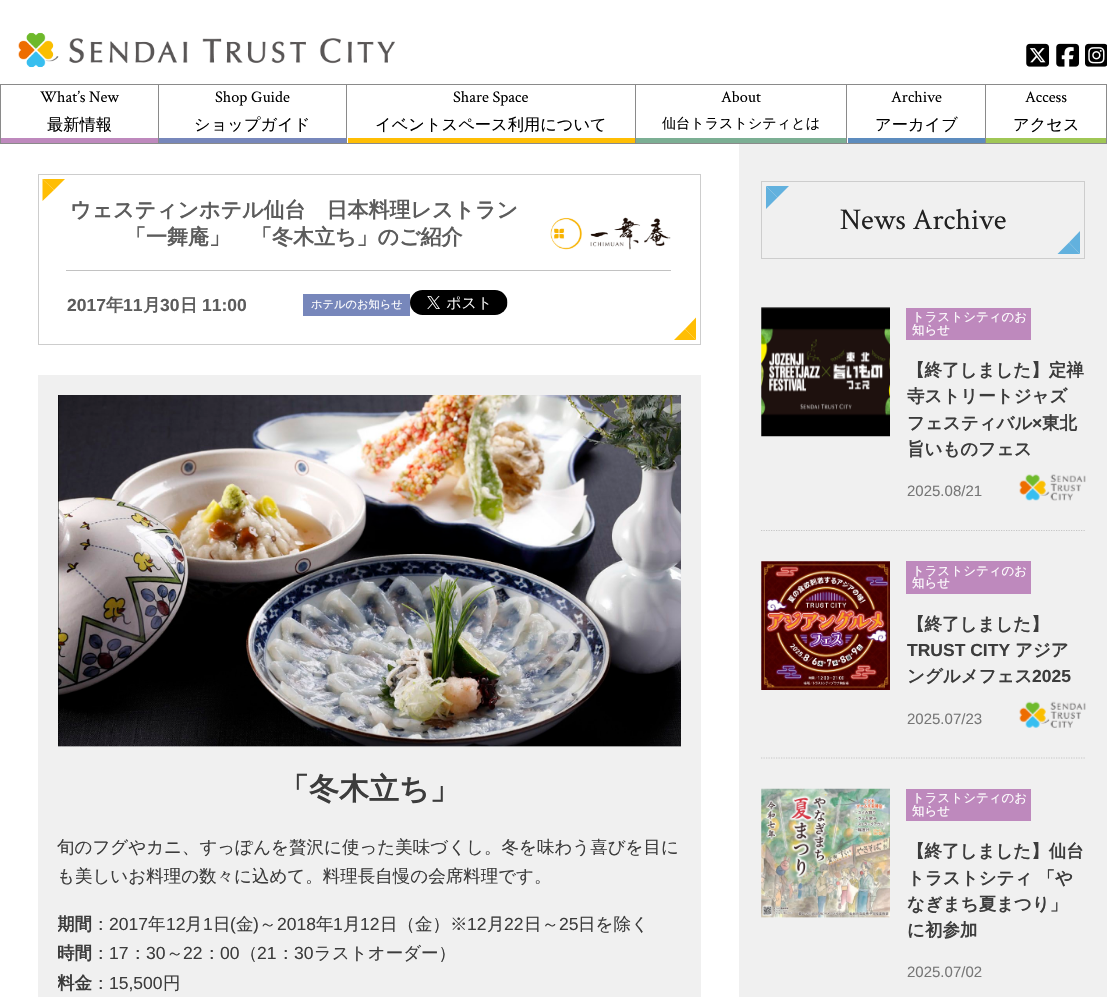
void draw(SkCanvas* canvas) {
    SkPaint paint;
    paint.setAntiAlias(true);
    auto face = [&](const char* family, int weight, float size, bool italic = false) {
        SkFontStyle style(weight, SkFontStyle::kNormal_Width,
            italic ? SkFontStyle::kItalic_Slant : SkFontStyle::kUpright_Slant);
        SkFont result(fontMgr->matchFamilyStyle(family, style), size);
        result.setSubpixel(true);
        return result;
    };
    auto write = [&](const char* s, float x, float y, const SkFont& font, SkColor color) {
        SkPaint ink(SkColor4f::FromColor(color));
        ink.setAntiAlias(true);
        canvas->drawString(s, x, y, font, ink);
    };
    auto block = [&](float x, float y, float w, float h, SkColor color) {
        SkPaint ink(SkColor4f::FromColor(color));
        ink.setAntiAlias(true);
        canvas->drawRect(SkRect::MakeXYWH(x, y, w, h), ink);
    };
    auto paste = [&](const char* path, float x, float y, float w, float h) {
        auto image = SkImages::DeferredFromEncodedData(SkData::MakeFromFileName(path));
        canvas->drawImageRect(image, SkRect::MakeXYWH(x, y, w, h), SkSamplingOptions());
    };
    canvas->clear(SK_ColorWHITE);
    block(0, 143, 1107, 1, SkColorSetRGB(138, 138, 138));
    block(0, 84, 1107, 1, SkColorSetRGB(138, 138, 138));
    paste("pic1.png", 18, 32, 377, 36);
    paste("pic2.png", 1026, 43, 23, 24);
    paste("pic3.png", 1056, 43, 23, 24);
    paste("pic4.png", 1085, 43, 22, 24);
    block(158, 85, 1, 58, SkColorSetRGB(138, 138, 138));
    block(0, 85, 1, 58, SkColorSetRGB(138, 138, 138));
    block(1, 138, 157, 5, SkColorSetRGB(190, 137, 189));
    auto kFont1 = face("Crimson Text", 400, 16.25f);
    write("What’s New", 40, 102, kFont1, SK_ColorBLACK);
    auto kFont2 = face("WenQuanYi Zen Hei", 500, 16.25f);
    write("最新情報", 47, 130, kFont2, SK_ColorBLACK);
    block(346, 85, 1, 58, SkColorSetRGB(138, 138, 138));
    block(159, 138, 187, 5, SkColorSetRGB(119, 135, 187));
    write("Shop Guide", 215, 102, kFont1, SK_ColorBLACK);
    write("ショップガイド", 194, 130, kFont2, SK_ColorBLACK);
    block(635, 85, 1, 58, SkColorSetRGB(138, 138, 138));
    block(348, 138, 287, 5, SkColorSetRGB(255, 190, 4));
    write("Share Space", 453, 102, kFont1, SK_ColorBLACK);
    write("イベントスペース利用について", 375, 130, kFont2, SK_ColorBLACK);
    block(846, 85, 1, 58, SkColorSetRGB(138, 138, 138));
    block(636, 138, 210, 5, SkColorSetRGB(124, 175, 148));
    write("About", 721, 102, kFont1, SK_ColorBLACK);
    auto kFont3 = face("WenQuanYi Zen Hei", 500, 14.1f);
    write("仙台トラストシティとは", 662, 128, kFont3, SK_ColorBLACK);
    block(985, 85, 1, 58, SkColorSetRGB(138, 138, 138));
    block(848, 138, 137, 5, SkColorSetRGB(93, 140, 190));
    write("Archive", 891, 102, kFont1, SK_ColorBLACK);
    write("アーカイブ", 875, 130, kFont2, SK_ColorBLACK);
    block(1106, 85, 1, 58, SkColorSetRGB(138, 138, 138));
    block(986, 138, 120, 5, SkColorSetRGB(160, 199, 86));
    write("Access", 1025, 102, kFont1, SK_ColorBLACK);
    write("アクセス", 1013, 130, kFont2, SK_ColorBLACK);
    paint.setStyle(SkPaint::kStroke_Style);
    paint.setStrokeWidth(1);
    paint.setColor(SkColorSetRGB(205, 205, 205));
    canvas->drawRect(SkRect::MakeXYWH(38.5f, 174.5f, 662, 170), paint);
    paint.setStyle(SkPaint::kFill_Style);
    paint.setColor(SkColorSetRGB(255, 190, 4));
    canvas->drawPath(SkPathBuilder().moveTo(42.5f, 179).lineTo(65, 179).lineTo(54, 190).close().detach(), paint);
    canvas->drawPath(SkPathBuilder().moveTo(42.5f, 201).lineTo(42.5f, 179).lineTo(54, 190).close().detach(), paint);
    block(66, 270, 605, 1, SkColorSetRGB(194, 194, 194));
    auto kFont4 = face("WenQuanYi Zen Hei", 700, 21);
    write("ウェスティンホテル仙台　日本料理レストラン", 70, 217, kFont4, SkColorSetRGB(92, 92, 92));
    write("「一舞庵」　「冬木立ち」のご紹介", 125, 244, kFont4, SkColorSetRGB(92, 92, 92));
    paste("pic5.png", 550, 217, 121, 33);
    auto kFont5 = face("Liberation Sans", 700, 17.5f);
    write("2017", 67, 311, kFont5, SkColorSetRGB(92, 92, 92));
    auto kFont6 = face("WenQuanYi Zen Hei", 700, 17.5f);
    write("年", 106, 311, kFont6, SkColorSetRGB(92, 92, 92));
    write("11", 123, 311, kFont5, SkColorSetRGB(92, 92, 92));
    write("月", 143, 311, kFont6, SkColorSetRGB(92, 92, 92));
    write("30", 160, 311, kFont5, SkColorSetRGB(92, 92, 92));
    write("日", 180, 311, kFont6, SkColorSetRGB(92, 92, 92));
    write("11:00", 202, 311, kFont5, SkColorSetRGB(92, 92, 92));
    block(303, 294, 107, 22, SkColorSetRGB(119, 135, 187));
    auto kFont7 = face("WenQuanYi Zen Hei", 500, 11.25f);
    write("ホテルのお知らせ", 311, 308, kFont7, SK_ColorWHITE);
    paste("pic6.png", 410, 290, 98, 25);
    canvas->drawPath(SkPathBuilder().moveTo(696, 317.5f).lineTo(696, 340).lineTo(685, 329).close().detach(), paint);
    canvas->drawPath(SkPathBuilder().moveTo(696, 340).lineTo(674, 340).lineTo(685, 329).close().detach(), paint);
    block(38, 375, 663, 622, SkColorSetRGB(240, 240, 240));
    paste("pic7.png", 58, 395, 623, 352);
    auto kFont8 = face("WenQuanYi Zen Hei", 700, 30);
    write("「冬木立ち」", 279, 799, kFont8, SkColorSetRGB(60, 60, 60));
    auto kFont9 = face("WenQuanYi Zen Hei", 500, 17.5f);
    write("旬のフグやカニ、すっぽんを贅沢に使った美味づくし。冬を味わう喜びを目に", 57, 853, kFont9, SkColorSetRGB(60, 60, 60));
    write("も美しいお料理の数々に込めて。料理長自慢の会席料理です。", 57, 882, kFont9, SkColorSetRGB(60, 60, 60));
    canvas->save();
    canvas->clipRect(SkRect::MakeXYWH(58, 395, 623, 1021));
    write("期間", 57, 930, kFont6, SkColorSetRGB(60, 60, 60));
    canvas->restore();
    write("：", 92, 930, kFont9, SkColorSetRGB(60, 60, 60));
    auto kFont10 = face("Liberation Sans", 400, 17.5f);
    write("2017", 109, 930, kFont10, SkColorSetRGB(60, 60, 60));
    write("年", 148, 930, kFont9, SkColorSetRGB(60, 60, 60));
    write("12", 166, 930, kFont10, SkColorSetRGB(60, 60, 60));
    write("月", 185, 930, kFont9, SkColorSetRGB(60, 60, 60));
    write("1", 203, 930, kFont10, SkColorSetRGB(60, 60, 60));
    write("日", 213, 930, kFont9, SkColorSetRGB(60, 60, 60));
    write("(", 230, 930, kFont10, SkColorSetRGB(60, 60, 60));
    write("金", 236, 930, kFont9, SkColorSetRGB(60, 60, 60));
    write(")", 253, 930, kFont10, SkColorSetRGB(60, 60, 60));
    write("～", 259, 930, kFont9, SkColorSetRGB(60, 60, 60));
    write("2018", 277, 930, kFont10, SkColorSetRGB(60, 60, 60));
    write("年", 316, 930, kFont9, SkColorSetRGB(60, 60, 60));
    write("1", 333, 930, kFont10, SkColorSetRGB(60, 60, 60));
    write("月", 343, 930, kFont9, SkColorSetRGB(60, 60, 60));
    write("12", 360, 930, kFont10, SkColorSetRGB(60, 60, 60));
    write("日（金）※", 380, 930, kFont9, SkColorSetRGB(60, 60, 60));
    write("12", 467, 930, kFont10, SkColorSetRGB(60, 60, 60));
    write("月", 487, 930, kFont9, SkColorSetRGB(60, 60, 60));
    write("22", 504, 930, kFont10, SkColorSetRGB(60, 60, 60));
    write("日～", 524, 930, kFont9, SkColorSetRGB(60, 60, 60));
    write("25", 559, 930, kFont10, SkColorSetRGB(60, 60, 60));
    write("日を除く", 578, 930, kFont9, SkColorSetRGB(60, 60, 60));
    canvas->save();
    canvas->clipRect(SkRect::MakeXYWH(58, 395, 623, 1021));
    write("時間", 57, 959, kFont6, SkColorSetRGB(60, 60, 60));
    canvas->restore();
    write("：", 92, 959, kFont9, SkColorSetRGB(60, 60, 60));
    write("17", 109, 959, kFont10, SkColorSetRGB(60, 60, 60));
    write("：", 129, 959, kFont9, SkColorSetRGB(60, 60, 60));
    write("30", 146, 959, kFont10, SkColorSetRGB(60, 60, 60));
    write("～", 166, 959, kFont9, SkColorSetRGB(60, 60, 60));
    write("22", 183, 959, kFont10, SkColorSetRGB(60, 60, 60));
    write("：", 203, 959, kFont9, SkColorSetRGB(60, 60, 60));
    write("00", 220, 959, kFont10, SkColorSetRGB(60, 60, 60));
    write("（", 240, 959, kFont9, SkColorSetRGB(60, 60, 60));
    write("21", 257, 959, kFont10, SkColorSetRGB(60, 60, 60));
    write("：", 277, 959, kFont9, SkColorSetRGB(60, 60, 60));
    write("30", 294, 959, kFont10, SkColorSetRGB(60, 60, 60));
    write("ラストオーダー）", 314, 959, kFont9, SkColorSetRGB(60, 60, 60));
    canvas->save();
    canvas->clipRect(SkRect::MakeXYWH(58, 395, 623, 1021));
    write("料金", 57, 989, kFont6, SkColorSetRGB(60, 60, 60));
    canvas->restore();
    write("：", 92, 989, kFont9, SkColorSetRGB(60, 60, 60));
    write("15,500", 109, 989, kFont10, SkColorSetRGB(60, 60, 60));
    write("円", 163, 989, kFont9, SkColorSetRGB(60, 60, 60));
    block(739, 144, 368, 853, SkColorSetRGB(240, 240, 240));
    paint.setStyle(SkPaint::kStroke_Style);
    paint.setColor(SkColorSetRGB(205, 205, 205));
    canvas->drawRect(SkRect::MakeXYWH(761.5f, 181.5f, 323, 77), paint);
    paint.setStyle(SkPaint::kFill_Style);
    paint.setColor(SkColorSetRGB(98, 177, 222));
    canvas->drawPath(SkPathBuilder().moveTo(766, 186).lineTo(789, 186).lineTo(777.5f, 197.5f).close().detach(), paint);
    canvas->drawPath(SkPathBuilder().moveTo(766, 209).lineTo(766, 186).lineTo(777.5f, 197.5f).close().detach(), paint);
    auto kFont11 = face("Crimson Text", 400, 30);
    write("News Archive", 840, 229, kFont11, SkColorSetRGB(34, 34, 34));
    canvas->drawPath(SkPathBuilder().moveTo(1080, 231).lineTo(1080, 254).lineTo(1069, 242.5f).close().detach(), paint);
    canvas->drawPath(SkPathBuilder().moveTo(1080, 254).lineTo(1057.5f, 254).lineTo(1069, 242.5f).close().detach(), paint);
    paint.setStyle(SkPaint::kStroke_Style);
    paint.setStrokeWidth(1.2f);
    paint.setColor(SkColorSetRGB(198, 198, 198));
    paint.setPathEffect(SkDashPathEffect::Make({{1.25f, 1.25f}}, 0));
    canvas->drawPath(SkPathBuilder().moveTo(761, 530.5f).lineTo(1085, 530.5f).detach(), paint);
    paint.setPathEffect(nullptr);
    paste("pic8.png", 761, 307, 129, 130);
    block(906, 308, 125, 32, SkColorSetRGB(190, 137, 189));
    auto kFont12 = face("WenQuanYi Zen Hei", 500, 12.5f);
    write("トラストシティのお", 912, 321, kFont12, SK_ColorWHITE);
    write("知らせ", 912, 334, kFont12, SK_ColorWHITE);
    write("【終了しました】定禅", 907, 376, kFont6, SkColorSetRGB(60, 60, 60));
    write("寺ストリートジャズ", 907, 402, kFont6, SkColorSetRGB(60, 60, 60));
    write("フェスティバル", 907, 429, kFont6, SkColorSetRGB(60, 60, 60));
    write("×", 1032, 429, kFont5, SkColorSetRGB(60, 60, 60));
    write("東北", 1042, 429, kFont6, SkColorSetRGB(60, 60, 60));
    write("旨いものフェス", 907, 455, kFont6, SkColorSetRGB(60, 60, 60));
    auto kFont13 = face("Liberation Sans", 400, 15);
    write("2025.08/21", 907, 496, kFont13, SkColorSetRGB(119, 119, 119));
    paste("pic9.png", 1019, 474, 67, 27);
    paint.setPathEffect(SkDashPathEffect::Make({{1.25f, 1.25f}}, 0));
    canvas->drawPath(SkPathBuilder().moveTo(761, 758).lineTo(1085, 758).detach(), paint);
    paint.setPathEffect(nullptr);
    paste("pic10.png", 761, 561, 129, 129);
    block(906, 561, 125, 33, SkColorSetRGB(190, 137, 189));
    write("トラストシティのお", 912, 575, kFont12, SK_ColorWHITE);
    write("知らせ", 912, 587, kFont12, SK_ColorWHITE);
    write("【終了しました】", 907, 630, kFont6, SkColorSetRGB(60, 60, 60));
    write("TRUST CITY", 907, 656, kFont5, SkColorSetRGB(60, 60, 60));
    write("アジア", 1015, 656, kFont6, SkColorSetRGB(60, 60, 60));
    write("ングルメフェス", 907, 682, kFont6, SkColorSetRGB(60, 60, 60));
    write("2025", 1032, 682, kFont5, SkColorSetRGB(60, 60, 60));
    write("2025.07/23", 907, 724, kFont13, SkColorSetRGB(119, 119, 119));
    paste("pic11.png", 1019, 701, 67, 27);
    paste("pic12.png", 761, 788, 129, 130);
    block(906, 789, 125, 32, SkColorSetRGB(190, 137, 189));
    write("トラストシティのお", 912, 802, kFont12, SK_ColorWHITE);
    write("知らせ", 912, 815, kFont12, SK_ColorWHITE);
    write("【終了しました】仙台", 907, 857, kFont6, SkColorSetRGB(60, 60, 60));
    write("トラストシティ 「や", 907, 884, kFont6, SkColorSetRGB(60, 60, 60));
    write("なぎまち夏まつり」", 907, 910, kFont6, SkColorSetRGB(60, 60, 60));
    write("に初参加", 907, 936, kFont6, SkColorSetRGB(60, 60, 60));
    write("2025.07/02", 907, 977, kFont13, SkColorSetRGB(119, 119, 119));
}
